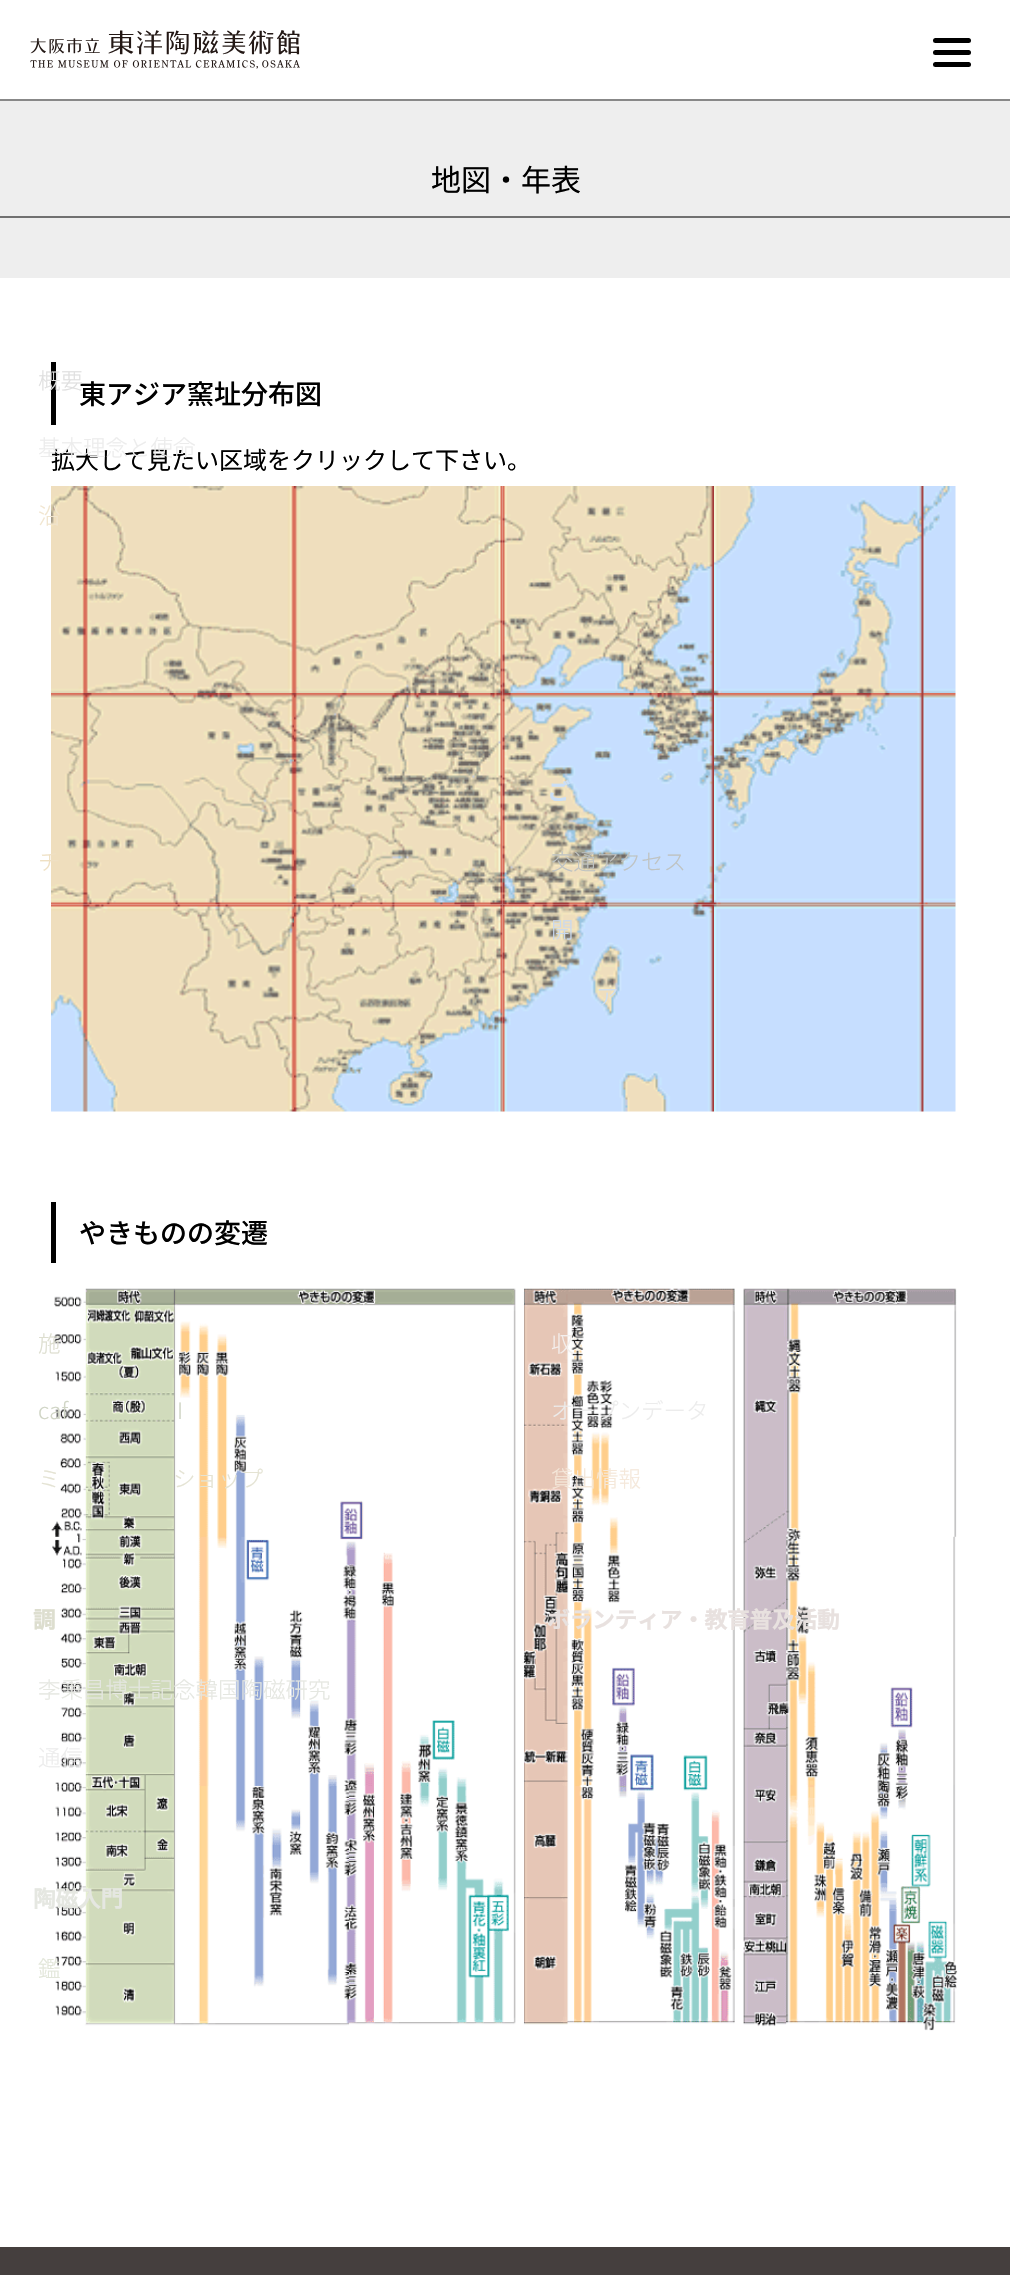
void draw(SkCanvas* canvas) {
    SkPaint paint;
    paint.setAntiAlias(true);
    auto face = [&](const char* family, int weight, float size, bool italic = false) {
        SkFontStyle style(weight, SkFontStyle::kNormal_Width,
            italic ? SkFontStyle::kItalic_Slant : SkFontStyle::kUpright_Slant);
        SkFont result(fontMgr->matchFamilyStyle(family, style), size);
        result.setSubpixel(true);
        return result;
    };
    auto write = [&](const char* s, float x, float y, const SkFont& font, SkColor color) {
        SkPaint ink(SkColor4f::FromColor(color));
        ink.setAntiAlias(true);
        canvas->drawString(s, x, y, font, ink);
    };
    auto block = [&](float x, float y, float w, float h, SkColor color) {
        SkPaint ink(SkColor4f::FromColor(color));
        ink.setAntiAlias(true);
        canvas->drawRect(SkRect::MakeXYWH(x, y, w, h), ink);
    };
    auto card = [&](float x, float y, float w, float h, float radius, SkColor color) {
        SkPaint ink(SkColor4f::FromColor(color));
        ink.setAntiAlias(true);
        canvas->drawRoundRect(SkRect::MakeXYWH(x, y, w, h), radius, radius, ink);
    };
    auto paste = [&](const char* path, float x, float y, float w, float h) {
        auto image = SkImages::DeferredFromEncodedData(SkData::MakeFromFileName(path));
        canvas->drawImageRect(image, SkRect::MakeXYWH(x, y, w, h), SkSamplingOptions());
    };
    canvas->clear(SK_ColorWHITE);
    block(0, 101, 1010, 177, SkColorSetRGB(238, 238, 238));
    auto kFont1 = face("Noto Sans JP", 400, 30);
    write("地図・年表", 431, 191, kFont1, SK_ColorBLACK);
    block(0, 216, 1010, 2, SkColorSetRGB(112, 112, 112));
    block(0, 99, 1010, 2, SkColorSetRGB(136, 136, 136));
    paste("pic1.png", 30, 30, 270, 39);
    card(933, 50, 38, 5, 2.5f, SK_ColorBLACK);
    card(933, 38, 38, 5, 2.5f, SK_ColorBLACK);
    card(933, 62, 38, 5, 2.5f, SK_ColorBLACK);
    block(51, 362, 5, 63, SK_ColorBLACK);
    auto kFont2 = face("Noto Sans JP", 500, 27);
    write("東アジア窯址分布図", 79, 404, kFont2, SK_ColorBLACK);
    auto kFont3 = face("Noto Sans JP", 300, 22.5f);
    write("概要", 38, 389, kFont3, SkColorSetRGB(223, 223, 223));
    auto kFont4 = face("Noto Sans JP", 400, 24);
    write("拡大して見たい区域をクリックして下さい。", 51, 469, kFont4, SK_ColorBLACK);
    write("基本理念と使命", 38, 456, kFont3, SkColorSetRGB(236, 236, 236));
    paste("pic2.png", 51, 486, 243, 207);
    write("沿", 38, 524, kFont3, SkColorSetRGB(241, 229, 206));
    paste("pic6.png", 51, 693, 243, 212);
    write("チ", 38, 870, kFont3, SkColorSetRGB(239, 224, 195));
    paste("pic7.png", 294, 693, 209, 212);
    paste("pic8.png", 502, 693, 212, 212);
    auto kFont5 = face("Noto Sans JP", 700, 22.5f);
    write("ご", 547, 800, kFont5, SkColorSetRGB(202, 222, 246));
    write("交通アクセス", 551, 870, kFont3, SkColorSetRGB(191, 195, 194));
    paste("pic11.png", 294, 904, 209, 208);
    paste("pic12.png", 502, 904, 212, 208);
    write("開", 551, 938, kFont3, SkColorSetRGB(200, 217, 240));
    write("ア", 596, 1005, kFont3, SkColorSetRGB(202, 222, 246));
    paste("pic14.png", 51, 1288, 907, 743);
    write("施", 38, 1352, kFont3, SkColorSetRGB(221, 222, 207));
    write("caf", 38, 1419, kFont3, SkColorSetRGB(208, 213, 197));
    write("I", 177, 1419, kFont3, SkColorSetRGB(208, 213, 197));
    write("ミ", 38, 1487, kFont3, SkColorSetRGB(228, 227, 211));
    write("ショップ", 173, 1487, kFont3, SkColorSetRGB(228, 227, 211));
    write("収", 551, 1352, kFont3, SkColorSetRGB(244, 239, 237));
    write("オープンデータ", 551, 1419, kFont3, SkColorSetRGB(236, 236, 236));
    write("貸出情報", 551, 1487, kFont3, SkColorSetRGB(245, 232, 218));
    write("調", 33, 1628, kFont5, SkColorSetRGB(221, 222, 207));
    write("李秉昌博士記念韓国陶磁研究", 38, 1698, kFont3, SkColorSetRGB(229, 231, 225));
    write("通信", 38, 1766, kFont3, SkColorSetRGB(236, 236, 236));
    write("ボランティア・教育普及活動", 547, 1628, kFont5, SkColorSetRGB(232, 225, 223));
    write("陶磁入門", 33, 1907, kFont5, SkColorSetRGB(229, 231, 225));
    write("鑑", 38, 1977, kFont3, SkColorSetRGB(226, 230, 217));
    paste("pic3.png", 294, 486, 209, 207);
    paste("pic4.png", 502, 486, 212, 207);
    paste("pic5.png", 714, 486, 242, 207);
    paste("pic9.png", 714, 693, 242, 212);
    paste("pic10.png", 51, 904, 243, 208);
    paste("pic13.png", 714, 904, 242, 208);
    block(51, 1202, 5, 61, SK_ColorBLACK);
    write("やきものの変遷", 79, 1243, kFont2, SK_ColorBLACK);
    block(0, 2247, 1010, 28, SkColorSetRGB(69, 63, 62));
}
